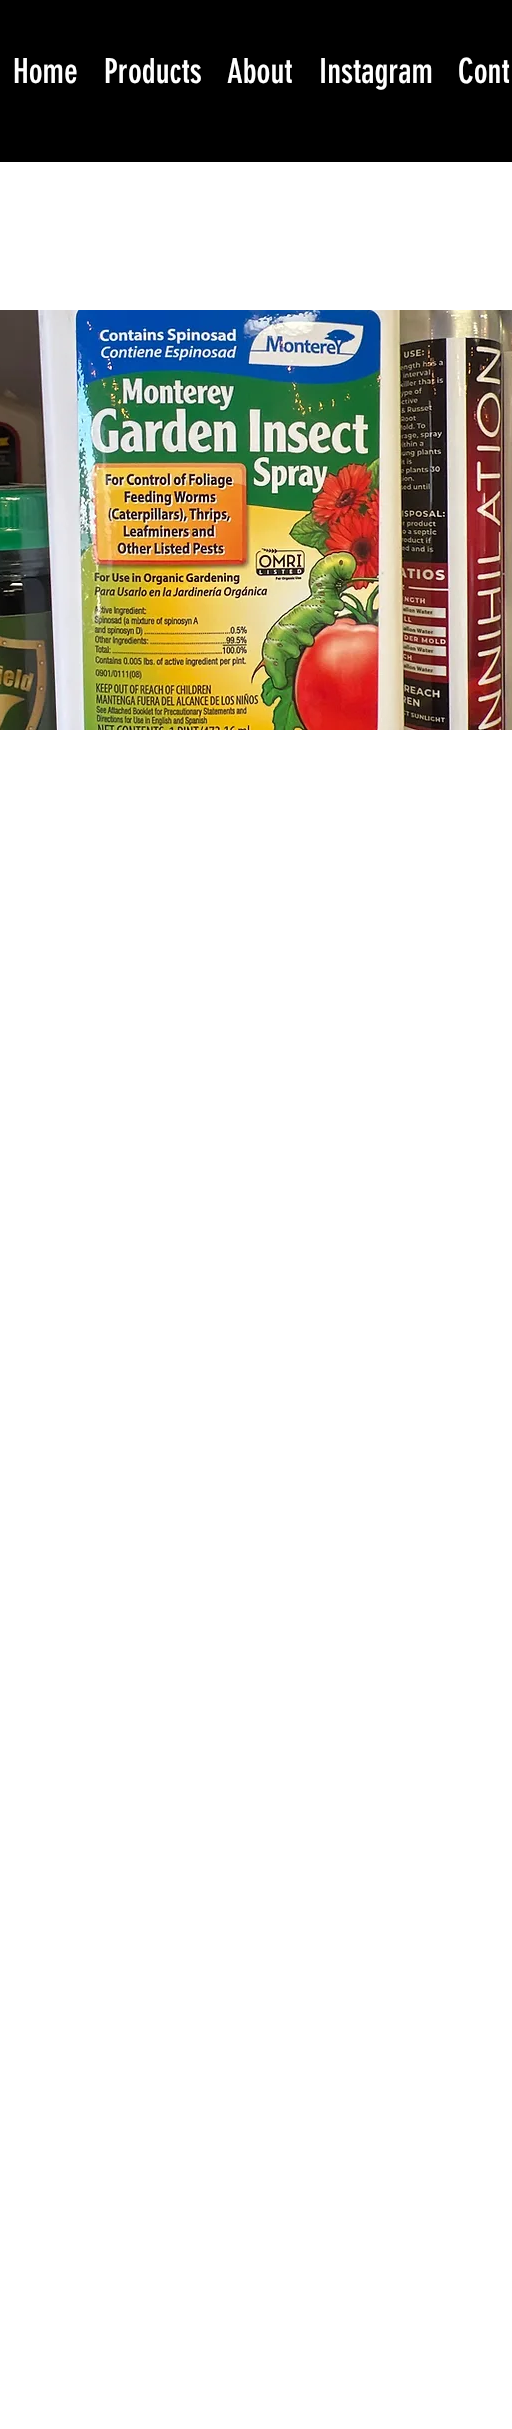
void draw(SkCanvas* canvas) {
    SkPaint paint;
    paint.setAntiAlias(true);
    auto face = [&](const char* family, int weight, float size, bool italic = false) {
        SkFontStyle style(weight, SkFontStyle::kNormal_Width,
            italic ? SkFontStyle::kItalic_Slant : SkFontStyle::kUpright_Slant);
        SkFont result(fontMgr->matchFamilyStyle(family, style), size);
        result.setSubpixel(true);
        return result;
    };
    auto write = [&](const char* s, float x, float y, const SkFont& font, SkColor color) {
        SkPaint ink(SkColor4f::FromColor(color));
        ink.setAntiAlias(true);
        canvas->drawString(s, x, y, font, ink);
    };
    auto block = [&](float x, float y, float w, float h, SkColor color) {
        SkPaint ink(SkColor4f::FromColor(color));
        ink.setAntiAlias(true);
        canvas->drawRect(SkRect::MakeXYWH(x, y, w, h), ink);
    };
    auto paste = [&](const char* path, float x, float y, float w, float h) {
        auto image = SkImages::DeferredFromEncodedData(SkData::MakeFromFileName(path));
        canvas->drawImageRect(image, SkRect::MakeXYWH(x, y, w, h), SkSamplingOptions());
    };
    canvas->clear(SK_ColorWHITE);
    block(0, 0, 512, 162, SK_ColorBLACK);
    auto kFont1 = face("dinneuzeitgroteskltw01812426", 400, 34);
    write("Home", 13, 83, kFont1, SK_ColorWHITE);
    write("Products", 104, 83, kFont1, SK_ColorWHITE);
    write("About", 227, 83, kFont1, SK_ColorWHITE);
    write("Instagram", 319, 83, kFont1, SK_ColorWHITE);
    write("Cont", 458, 83, kFont1, SK_ColorWHITE);
    paste("pic1.png", 0, 310, 512, 420);
}
